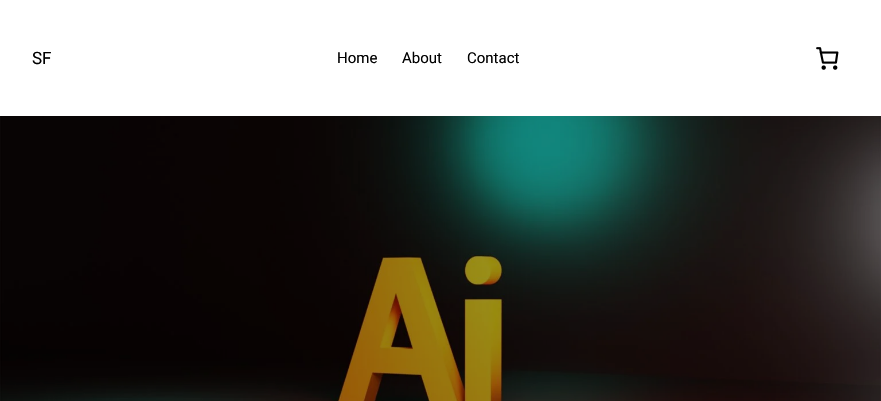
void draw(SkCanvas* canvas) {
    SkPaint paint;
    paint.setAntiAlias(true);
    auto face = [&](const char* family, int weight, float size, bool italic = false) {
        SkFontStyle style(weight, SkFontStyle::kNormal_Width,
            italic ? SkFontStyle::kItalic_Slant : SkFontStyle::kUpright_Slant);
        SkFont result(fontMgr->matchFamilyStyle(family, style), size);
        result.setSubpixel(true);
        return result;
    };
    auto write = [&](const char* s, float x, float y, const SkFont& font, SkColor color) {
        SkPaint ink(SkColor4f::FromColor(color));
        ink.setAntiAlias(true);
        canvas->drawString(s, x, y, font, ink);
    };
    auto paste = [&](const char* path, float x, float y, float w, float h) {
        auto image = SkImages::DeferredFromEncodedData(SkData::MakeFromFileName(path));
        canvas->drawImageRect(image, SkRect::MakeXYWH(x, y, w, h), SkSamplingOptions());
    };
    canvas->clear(SK_ColorWHITE);
    auto kFont1 = face("Roboto", 400, 17);
    write("SF", 32, 64, kFont1, SK_ColorBLACK);
    auto kFont2 = face("Roboto", 400, 15);
    write("Home", 337, 63, kFont2, SK_ColorBLACK);
    write("About", 402, 63, kFont2, SK_ColorBLACK);
    write("Contact", 467, 63, kFont2, SK_ColorBLACK);
    paste("pic1.png", 816, 47, 23, 23);
    paste("pic2.png", 0, 116, 881, 285);
}
